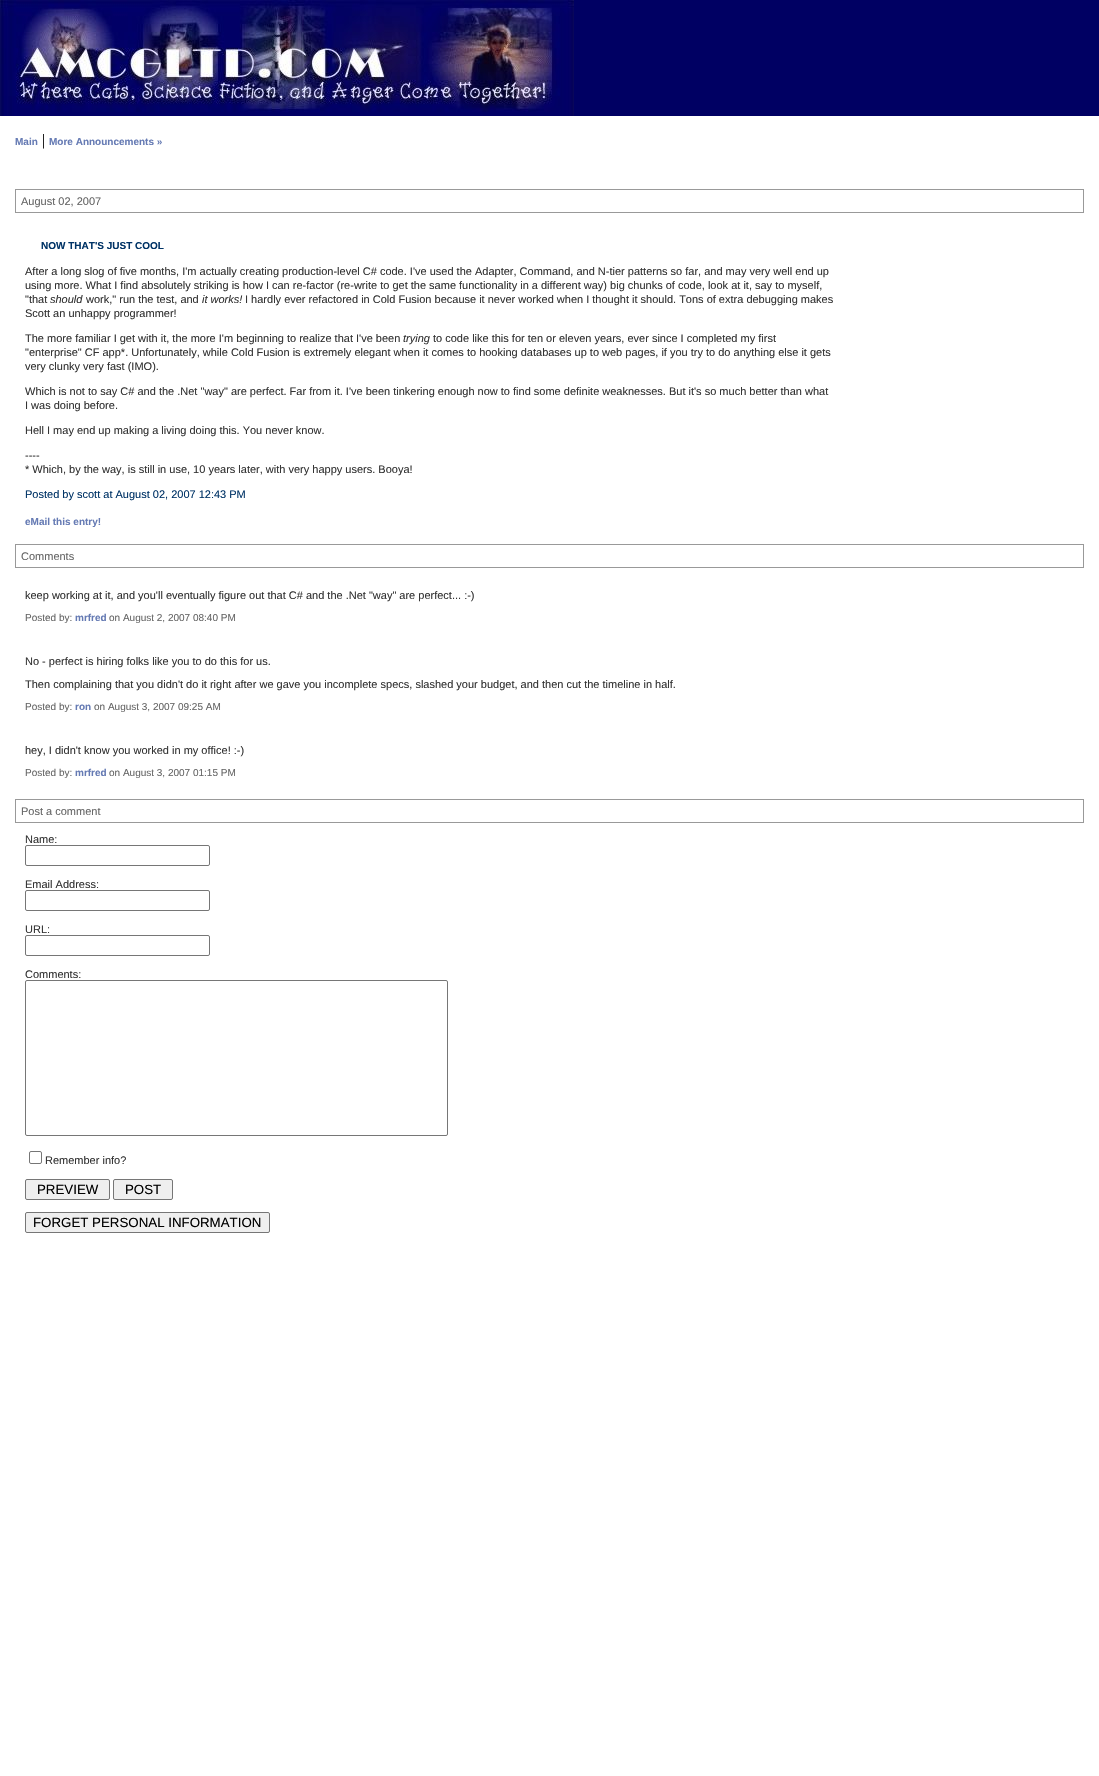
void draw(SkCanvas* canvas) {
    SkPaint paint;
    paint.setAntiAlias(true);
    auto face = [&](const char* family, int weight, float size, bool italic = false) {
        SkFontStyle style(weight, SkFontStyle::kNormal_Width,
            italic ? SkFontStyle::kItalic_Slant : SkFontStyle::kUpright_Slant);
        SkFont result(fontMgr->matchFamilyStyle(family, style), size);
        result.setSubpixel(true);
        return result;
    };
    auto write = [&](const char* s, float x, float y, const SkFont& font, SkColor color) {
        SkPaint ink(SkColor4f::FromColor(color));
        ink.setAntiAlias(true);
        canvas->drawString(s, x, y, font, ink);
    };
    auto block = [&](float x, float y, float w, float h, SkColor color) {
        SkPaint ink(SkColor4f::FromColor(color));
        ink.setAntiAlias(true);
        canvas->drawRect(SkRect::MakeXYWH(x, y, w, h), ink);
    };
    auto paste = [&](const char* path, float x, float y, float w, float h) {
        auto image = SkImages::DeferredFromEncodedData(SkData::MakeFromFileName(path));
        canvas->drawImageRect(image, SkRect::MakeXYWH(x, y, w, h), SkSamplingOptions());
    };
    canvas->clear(SK_ColorWHITE);
    block(574, 0, 525, 116, SkColorSetRGB(0, 0, 99));
    paste("pic1.png", 0, 0, 574, 116);
    auto kFont1 = face("Liberation Sans", 700, 10);
    write("Main", 15, 145, kFont1, SkColorSetRGB(102, 123, 180));
    auto kFont2 = face("Liberation Serif", 400, 16);
    write("|", 42, 145, kFont2, SK_ColorBLACK);
    write("More Announcements »", 49, 145, kFont1, SkColorSetRGB(102, 123, 180));
    paint.setStyle(SkPaint::kStroke_Style);
    paint.setStrokeWidth(1);
    paint.setColor(SkColorSetRGB(153, 153, 153));
    canvas->drawRect(SkRect::MakeXYWH(15.5f, 189.5f, 1068, 23), paint);
    auto kFont3 = face("Liberation Sans", 400, 11);
    write("August 02, 2007", 21, 205, kFont3, SkColorSetRGB(102, 102, 102));
    write("NOW THAT'S JUST COOL", 41, 249, kFont1, SkColorSetRGB(0, 51, 102));
    write("After a long slog of five months, I'm actually creating production-level C# code. I've used the Adapter, Command, and N-tier patterns so far, and may very well end up", 25, 275, kFont3, SkColorSetRGB(51, 51, 51));
    write("using more. What I find absolutely striking is how I can re-factor (re-write to get the same functionality in a different way) big chunks of code, look at it, say to myself,", 25, 289, kFont3, SkColorSetRGB(51, 51, 51));
    write("\"that", 25, 303, kFont3, SkColorSetRGB(51, 51, 51));
    auto kFont4 = face("Liberation Sans", 400, 11, true);
    write("should", 50, 303, kFont4, SkColorSetRGB(51, 51, 51));
    write("work,\" run the test, and", 86, 303, kFont3, SkColorSetRGB(51, 51, 51));
    write("it works!", 202, 303, kFont4, SkColorSetRGB(51, 51, 51));
    write("I hardly ever refactored in Cold Fusion because it never worked when I thought it should. Tons of extra debugging makes", 245, 303, kFont3, SkColorSetRGB(51, 51, 51));
    write("Scott an unhappy programmer!", 25, 317, kFont3, SkColorSetRGB(51, 51, 51));
    write("The more familiar I get with it, the more I'm beginning to realize that I've been", 25, 342, kFont3, SkColorSetRGB(51, 51, 51));
    write("trying", 403, 342, kFont4, SkColorSetRGB(51, 51, 51));
    write("to code like this for ten or eleven years, ever since I completed my first", 433, 342, kFont3, SkColorSetRGB(51, 51, 51));
    write("\"enterprise\" CF app*. Unfortunately, while Cold Fusion is extremely elegant when it comes to hooking databases up to web pages, if you try to do anything else it gets", 25, 356, kFont3, SkColorSetRGB(51, 51, 51));
    write("very clunky very fast (IMO).", 25, 370, kFont3, SkColorSetRGB(51, 51, 51));
    write("Which is not to say C# and the .Net \"way\" are perfect. Far from it. I've been tinkering enough now to find some definite weaknesses. But it's so much better than what", 25, 395, kFont3, SkColorSetRGB(51, 51, 51));
    write("I was doing before.", 25, 409, kFont3, SkColorSetRGB(51, 51, 51));
    write("Hell I may end up making a living doing this. You never know.", 25, 434, kFont3, SkColorSetRGB(51, 51, 51));
    write("----", 25, 459, kFont3, SkColorSetRGB(51, 51, 51));
    write("* Which, by the way, is still in use, 10 years later, with very happy users. Booya!", 25, 473, kFont3, SkColorSetRGB(51, 51, 51));
    write("Posted by scott at August 02, 2007 12:43 PM", 25, 498, kFont3, SkColorSetRGB(0, 51, 102));
    write("eMail this entry!", 25, 525, kFont1, SkColorSetRGB(102, 123, 180));
    canvas->drawRect(SkRect::MakeXYWH(15.5f, 544.5f, 1068, 23), paint);
    write("Comments", 21, 560, kFont3, SkColorSetRGB(102, 102, 102));
    write("keep working at it, and you'll eventually figure out that C# and the .Net \"way\" are perfect... :-)", 25, 599, kFont3, SkColorSetRGB(51, 51, 51));
    auto kFont5 = face("Liberation Sans", 400, 10);
    write("Posted by:", 25, 621, kFont5, SkColorSetRGB(102, 102, 102));
    write("mrfred", 75, 621, kFont1, SkColorSetRGB(102, 123, 180));
    write("on August 2, 2007 08:40 PM", 109, 621, kFont5, SkColorSetRGB(102, 102, 102));
    write("No - perfect is hiring folks like you to do this for us.", 25, 665, kFont3, SkColorSetRGB(51, 51, 51));
    write("Then complaining that you didn't do it right after we gave you incomplete specs, slashed your budget, and then cut the timeline in half.", 25, 688, kFont3, SkColorSetRGB(51, 51, 51));
    write("Posted by:", 25, 710, kFont5, SkColorSetRGB(102, 102, 102));
    write("ron", 75, 710, kFont1, SkColorSetRGB(102, 123, 180));
    write("on August 3, 2007 09:25 AM", 94, 710, kFont5, SkColorSetRGB(102, 102, 102));
    write("hey, I didn't know you worked in my office! :-)", 25, 754, kFont3, SkColorSetRGB(51, 51, 51));
    write("Posted by:", 25, 776, kFont5, SkColorSetRGB(102, 102, 102));
    write("mrfred", 75, 776, kFont1, SkColorSetRGB(102, 123, 180));
    write("on August 3, 2007 01:15 PM", 109, 776, kFont5, SkColorSetRGB(102, 102, 102));
    canvas->drawRect(SkRect::MakeXYWH(15.5f, 799.5f, 1068, 23), paint);
    write("Post a comment", 21, 815, kFont3, SkColorSetRGB(102, 102, 102));
    write("Name:", 25, 843, kFont3, SkColorSetRGB(51, 51, 51));
    paint.setColor(SkColorSetRGB(118, 118, 118));
    canvas->drawRoundRect(SkRect::MakeXYWH(25.5f, 845.5f, 184, 20), 1.5f, 1.5f, paint);
    write("Email Address:", 25, 888, kFont3, SkColorSetRGB(51, 51, 51));
    canvas->drawRoundRect(SkRect::MakeXYWH(25.5f, 890.5f, 184, 20), 1.5f, 1.5f, paint);
    write("URL:", 25, 933, kFont3, SkColorSetRGB(51, 51, 51));
    canvas->drawRoundRect(SkRect::MakeXYWH(25.5f, 935.5f, 184, 20), 1.5f, 1.5f, paint);
    write("Comments:", 25, 978, kFont3, SkColorSetRGB(51, 51, 51));
    canvas->drawRoundRect(SkRect::MakeXYWH(25.5f, 980.5f, 422, 155), 1.5f, 1.5f, paint);
    canvas->drawRoundRect(SkRect::MakeXYWH(29.5f, 1151.5f, 12, 12), 1.5f, 1.5f, paint);
    write("Remember info?", 45, 1164, kFont3, SkColorSetRGB(51, 51, 51));
    paint.setStyle(SkPaint::kFill_Style);
    paint.setColor(SkColorSetRGB(239, 239, 239));
    canvas->drawRoundRect(SkRect::MakeXYWH(25.5f, 1179.5f, 84, 20), 1.5f, 1.5f, paint);
    paint.setStyle(SkPaint::kStroke_Style);
    paint.setColor(SkColorSetRGB(118, 118, 118));
    canvas->drawRoundRect(SkRect::MakeXYWH(25.5f, 1179.5f, 84, 20), 1.5f, 1.5f, paint);
    auto kFont6 = face("Liberation Sans", 400, 13.3f);
    write("PREVIEW", 37, 1194, kFont6, SK_ColorBLACK);
    paint.setStyle(SkPaint::kFill_Style);
    paint.setColor(SkColorSetRGB(239, 239, 239));
    canvas->drawRoundRect(SkRect::MakeXYWH(113.5f, 1179.5f, 59, 20), 1.5f, 1.5f, paint);
    paint.setStyle(SkPaint::kStroke_Style);
    paint.setColor(SkColorSetRGB(118, 118, 118));
    canvas->drawRoundRect(SkRect::MakeXYWH(113.5f, 1179.5f, 59, 20), 1.5f, 1.5f, paint);
    write("POST", 125, 1194, kFont6, SK_ColorBLACK);
    paint.setStyle(SkPaint::kFill_Style);
    paint.setColor(SkColorSetRGB(239, 239, 239));
    canvas->drawRoundRect(SkRect::MakeXYWH(25.5f, 1212.5f, 244, 20), 1.5f, 1.5f, paint);
    paint.setStyle(SkPaint::kStroke_Style);
    paint.setColor(SkColorSetRGB(118, 118, 118));
    canvas->drawRoundRect(SkRect::MakeXYWH(25.5f, 1212.5f, 244, 20), 1.5f, 1.5f, paint);
    write("FORGET PERSONAL INFORMATION", 33, 1227, kFont6, SK_ColorBLACK);
}
